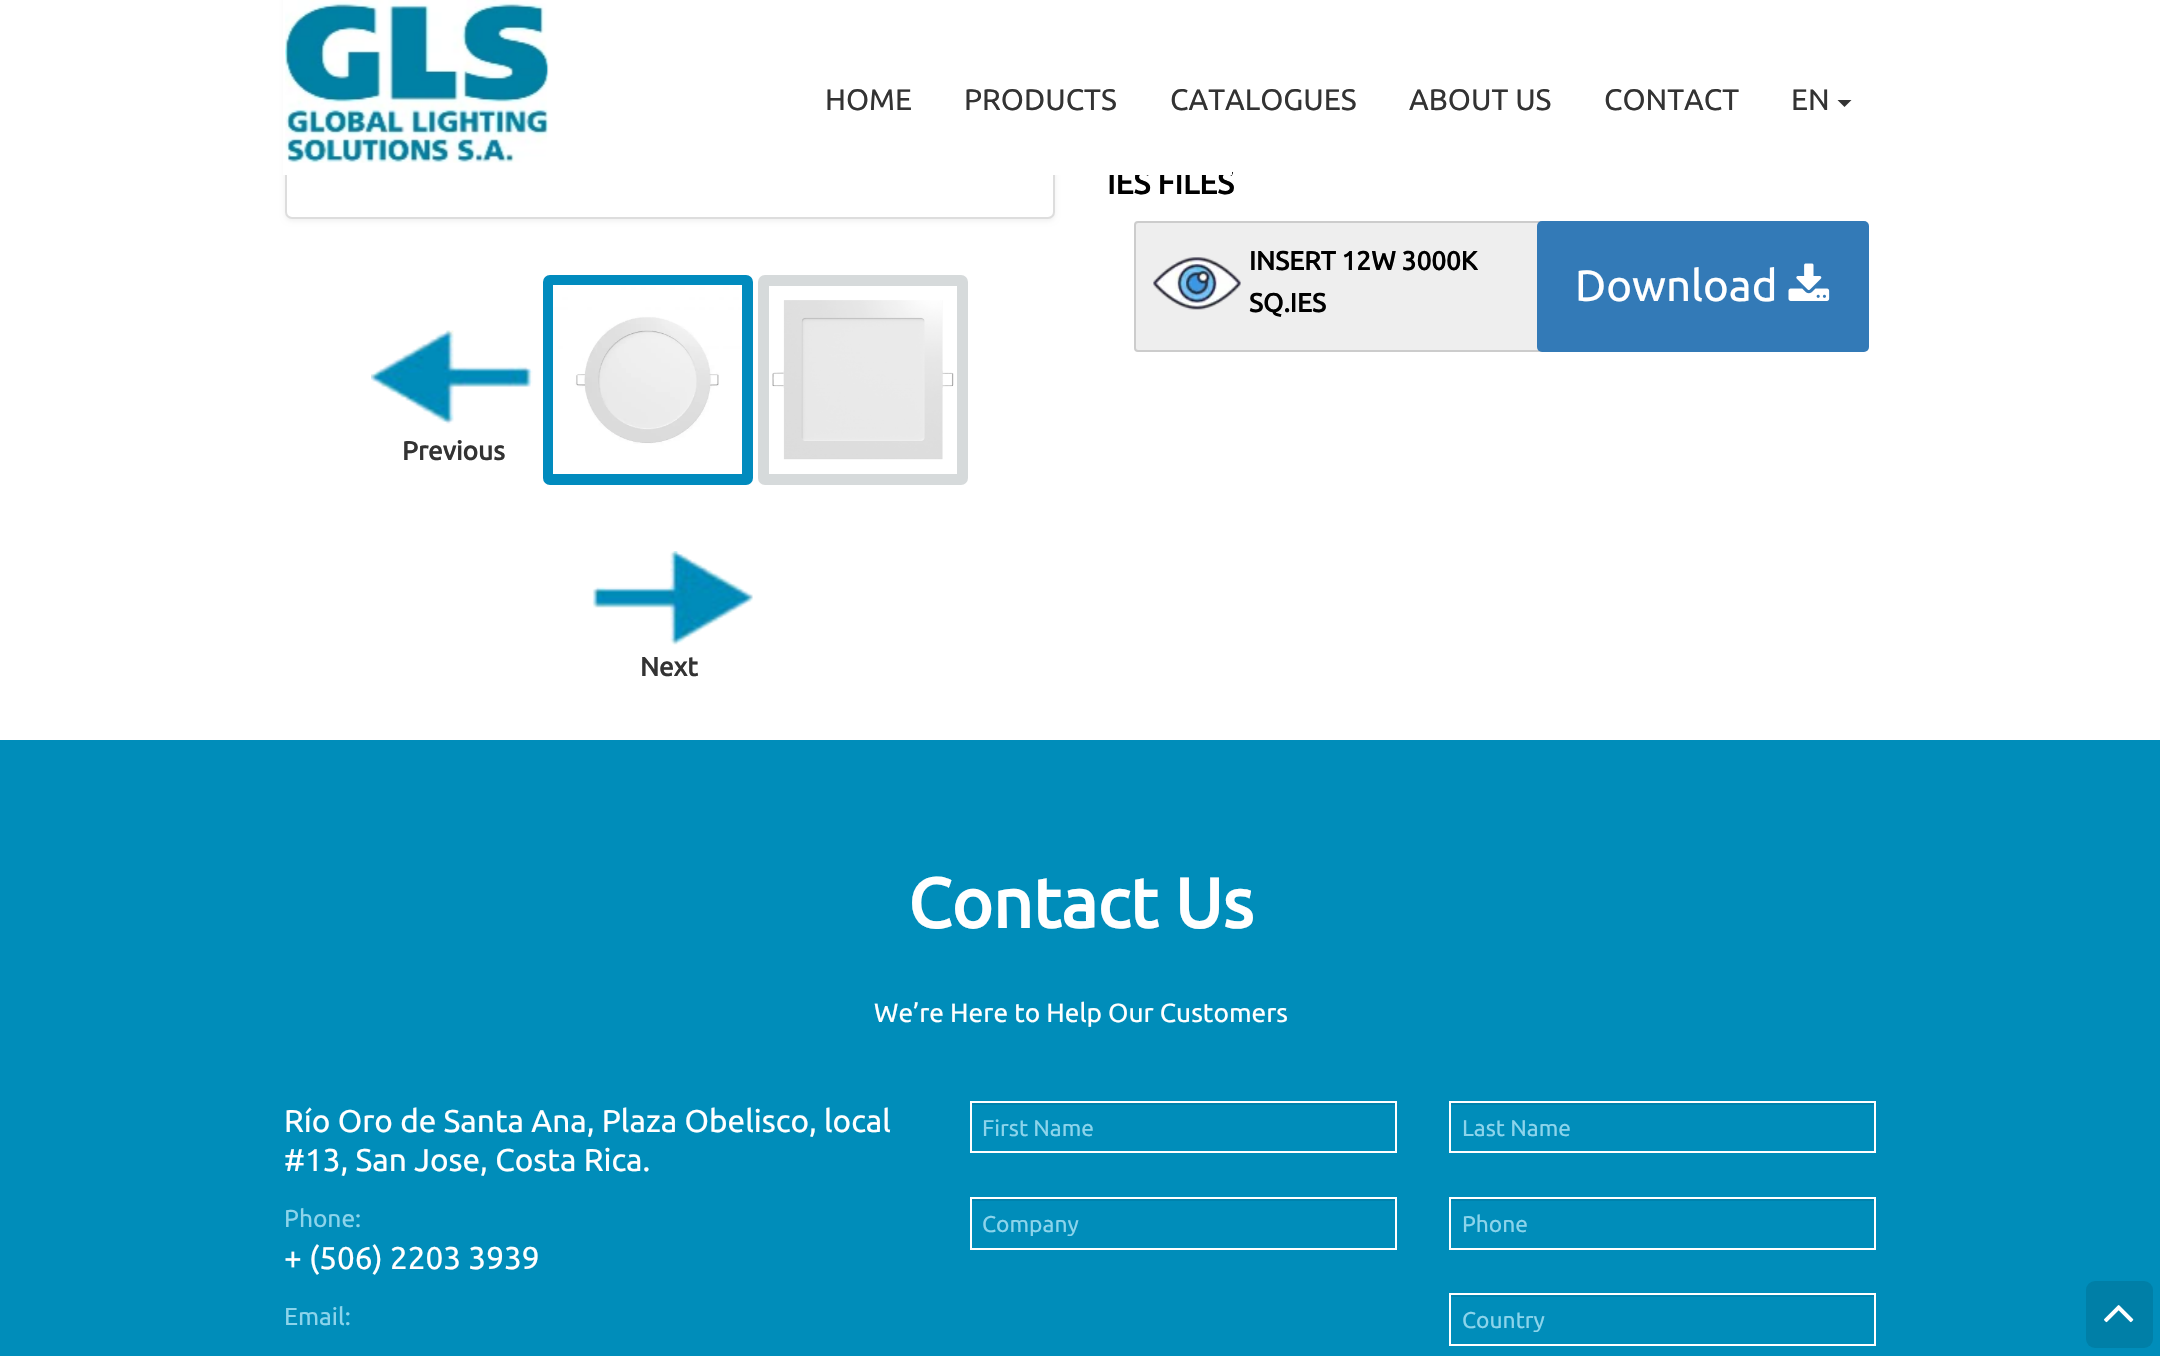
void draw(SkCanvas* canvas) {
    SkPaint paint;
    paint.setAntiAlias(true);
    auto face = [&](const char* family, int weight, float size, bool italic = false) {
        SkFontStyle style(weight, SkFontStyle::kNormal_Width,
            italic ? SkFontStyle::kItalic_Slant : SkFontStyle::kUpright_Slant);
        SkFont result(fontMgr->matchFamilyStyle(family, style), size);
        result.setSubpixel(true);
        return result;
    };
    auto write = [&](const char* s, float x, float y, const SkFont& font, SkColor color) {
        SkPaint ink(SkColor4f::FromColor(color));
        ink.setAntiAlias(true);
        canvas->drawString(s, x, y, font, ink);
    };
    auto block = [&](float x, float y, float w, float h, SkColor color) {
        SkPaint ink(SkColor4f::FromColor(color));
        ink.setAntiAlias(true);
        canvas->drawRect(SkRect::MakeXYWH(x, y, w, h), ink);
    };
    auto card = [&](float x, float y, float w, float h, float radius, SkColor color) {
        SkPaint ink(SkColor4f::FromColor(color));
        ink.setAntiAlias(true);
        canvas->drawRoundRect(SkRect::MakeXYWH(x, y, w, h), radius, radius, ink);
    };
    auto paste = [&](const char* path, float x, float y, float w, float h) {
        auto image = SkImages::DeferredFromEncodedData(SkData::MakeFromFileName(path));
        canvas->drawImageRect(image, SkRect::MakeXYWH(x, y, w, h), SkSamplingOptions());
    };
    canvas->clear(SK_ColorWHITE);
    auto kFont1 = face("Ubuntu", 700, 31.5f);
    write("IES FILES", 1107, 194, kFont1, SK_ColorBLACK);
    paint.setColor(SkColorSetARGB(15, 0, 0, 0));
    paint.setMaskFilter(SkMaskFilter::MakeBlur(kNormal_SkBlurStyle, 2.5f));
    canvas->drawRoundRect(SkRect::MakeXYWH(285, -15, 770, 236), 7, 7, paint);
    paint.setMaskFilter(nullptr);
    paint.setColor(SK_ColorWHITE);
    canvas->drawRoundRect(SkRect::MakeXYWH(286, -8, 768, 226), 6, 6, paint);
    paint.setStyle(SkPaint::kStroke_Style);
    paint.setStrokeWidth(2);
    paint.setColor(SkColorSetRGB(221, 221, 221));
    canvas->drawRoundRect(SkRect::MakeXYWH(286, -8, 768, 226), 6, 6, paint);
    block(283, 0, 949, 175, SK_ColorWHITE);
    paste("pic1.png", 285, 0, 264, 163);
    auto kFont2 = face("Ubuntu", 400, 29.75f);
    write("HOME", 825, 110, kFont2, SkColorSetRGB(51, 51, 51));
    write("PRODUCTS", 964, 110, kFont2, SkColorSetRGB(51, 51, 51));
    write("CATALOGUES", 1170, 110, kFont2, SkColorSetRGB(51, 51, 51));
    write("ABOUT US", 1409, 110, kFont2, SkColorSetRGB(51, 51, 51));
    write("CONTACT", 1604, 110, kFont2, SkColorSetRGB(51, 51, 51));
    write("EN", 1791, 110, kFont2, SkColorSetRGB(51, 51, 51));
    paint.setStyle(SkPaint::kFill_Style);
    paint.setColor(SkColorSetRGB(51, 51, 51));
    canvas->drawPath(SkPathBuilder().moveTo(1837.5f, 100).lineTo(1851.5f, 100).lineTo(1844.5f, 107).close().detach(), paint);
    paint.setColor(SkColorSetRGB(238, 238, 238));
    canvas->drawRoundRect(SkRect::MakeXYWH(1135, 222, 453, 129), 3, 3, paint);
    paint.setStyle(SkPaint::kStroke_Style);
    paint.setColor(SkColorSetRGB(204, 204, 204));
    canvas->drawRoundRect(SkRect::MakeXYWH(1135, 222, 453, 129), 3, 3, paint);
    paste("pic2.png", 1153, 257, 88, 53);
    auto kFont3 = face("Ubuntu", 700, 26.25f);
    write("INSERT 12W 3000K", 1249, 270, kFont3, SK_ColorBLACK);
    write("SQ.IES", 1249, 312, kFont3, SK_ColorBLACK);
    card(1537, 221, 332, 131, 5, SkColorSetRGB(51, 122, 183));
    auto kFont4 = face("Ubuntu", 400, 43.75f);
    write("Download", 1575, 301, kFont4, SK_ColorWHITE);
    paste("pic3.png", 1788, 263, 42, 38);
    paste("pic4.png", 371, 330, 162, 94);
    write("Previous", 402, 460, kFont3, SkColorSetRGB(51, 51, 51));
    paint.setStrokeWidth(11);
    paint.setColor(SkColorSetRGB(1, 139, 190));
    canvas->drawRoundRect(SkRect::MakeXYWH(548.5f, 280.5f, 199, 199), 1.5f, 1.5f, paint);
    paste("pic5.png", 553, 285, 189, 189);
    paint.setColor(SkColorSetRGB(214, 218, 219));
    canvas->drawRoundRect(SkRect::MakeXYWH(763.5f, 280.5f, 199, 199), 1.5f, 1.5f, paint);
    paste("pic6.png", 772, 300, 182, 160);
    paste("pic7.png", 592, 551, 161, 94);
    write("Next", 640, 676, kFont3, SkColorSetRGB(51, 51, 51));
    block(0, 740, 2160, 616, SkColorSetRGB(0, 141, 186));
    auto kFont5 = face("Ubuntu", 700, 70);
    write("Contact Us", 908, 928, kFont5, SK_ColorWHITE);
    auto kFont6 = face("Ubuntu", 400, 26.25f);
    write("We’re Here to Help Our Customers", 874, 1022, kFont6, SK_ColorWHITE);
    auto kFont7 = face("Ubuntu", 400, 31.5f);
    write("Río Oro de Santa Ana, Plaza Obelisco, local", 284, 1132, kFont7, SK_ColorWHITE);
    write("#13, San Jose, Costa Rica.", 284, 1171, kFont7, SK_ColorWHITE);
    auto kFont8 = face("Ubuntu", 400, 24.5f);
    write("Phone:", 284, 1227, kFont8, SkColorSetRGB(140, 212, 235));
    write("+ (506) 2203 3939", 284, 1269, kFont7, SK_ColorWHITE);
    write("Email:", 284, 1325, kFont8, SkColorSetRGB(140, 212, 235));
    block(971, 1103, 424, 2, SkColorSetRGB(0, 130, 172));
    paint.setStrokeWidth(2);
    paint.setColor(SK_ColorWHITE);
    canvas->drawRect(SkRect::MakeXYWH(971, 1102, 425, 50), paint);
    auto kFont9 = face("Ubuntu", 400, 22.75f);
    write("First Name", 982, 1136, kFont9, SkColorSetRGB(140, 212, 235));
    block(1451, 1103, 423, 2, SkColorSetRGB(0, 130, 172));
    canvas->drawRect(SkRect::MakeXYWH(1450, 1102, 425, 50), paint);
    write("Last Name", 1462, 1136, kFont9, SkColorSetRGB(140, 212, 235));
    block(971, 1199, 424, 2, SkColorSetRGB(0, 130, 172));
    canvas->drawRect(SkRect::MakeXYWH(971, 1198, 425, 51), paint);
    canvas->save();
    canvas->clipRect(SkRect::MakeXYWH(982, 1211, 402, 25));
    write("Company", 982, 1232, kFont9, SkColorSetRGB(140, 212, 235));
    canvas->restore();
    block(1451, 1199, 423, 2, SkColorSetRGB(0, 130, 172));
    canvas->drawRect(SkRect::MakeXYWH(1450, 1198, 425, 51), paint);
    write("Phone", 1462, 1232, kFont9, SkColorSetRGB(140, 212, 235));
    block(1451, 1295, 423, 2, SkColorSetRGB(0, 130, 172));
    canvas->drawRect(SkRect::MakeXYWH(1450, 1294, 425, 51), paint);
    canvas->save();
    canvas->clipRect(SkRect::MakeXYWH(1461, 1307, 403, 25));
    write("Country", 1462, 1328, kFont9, SkColorSetRGB(140, 212, 235));
    canvas->restore();
    card(2086, 1281, 67, 67, 9, SkColorSetRGB(0, 127, 167));
    paste("pic8.png", 2104, 1305, 30, 18);
}
